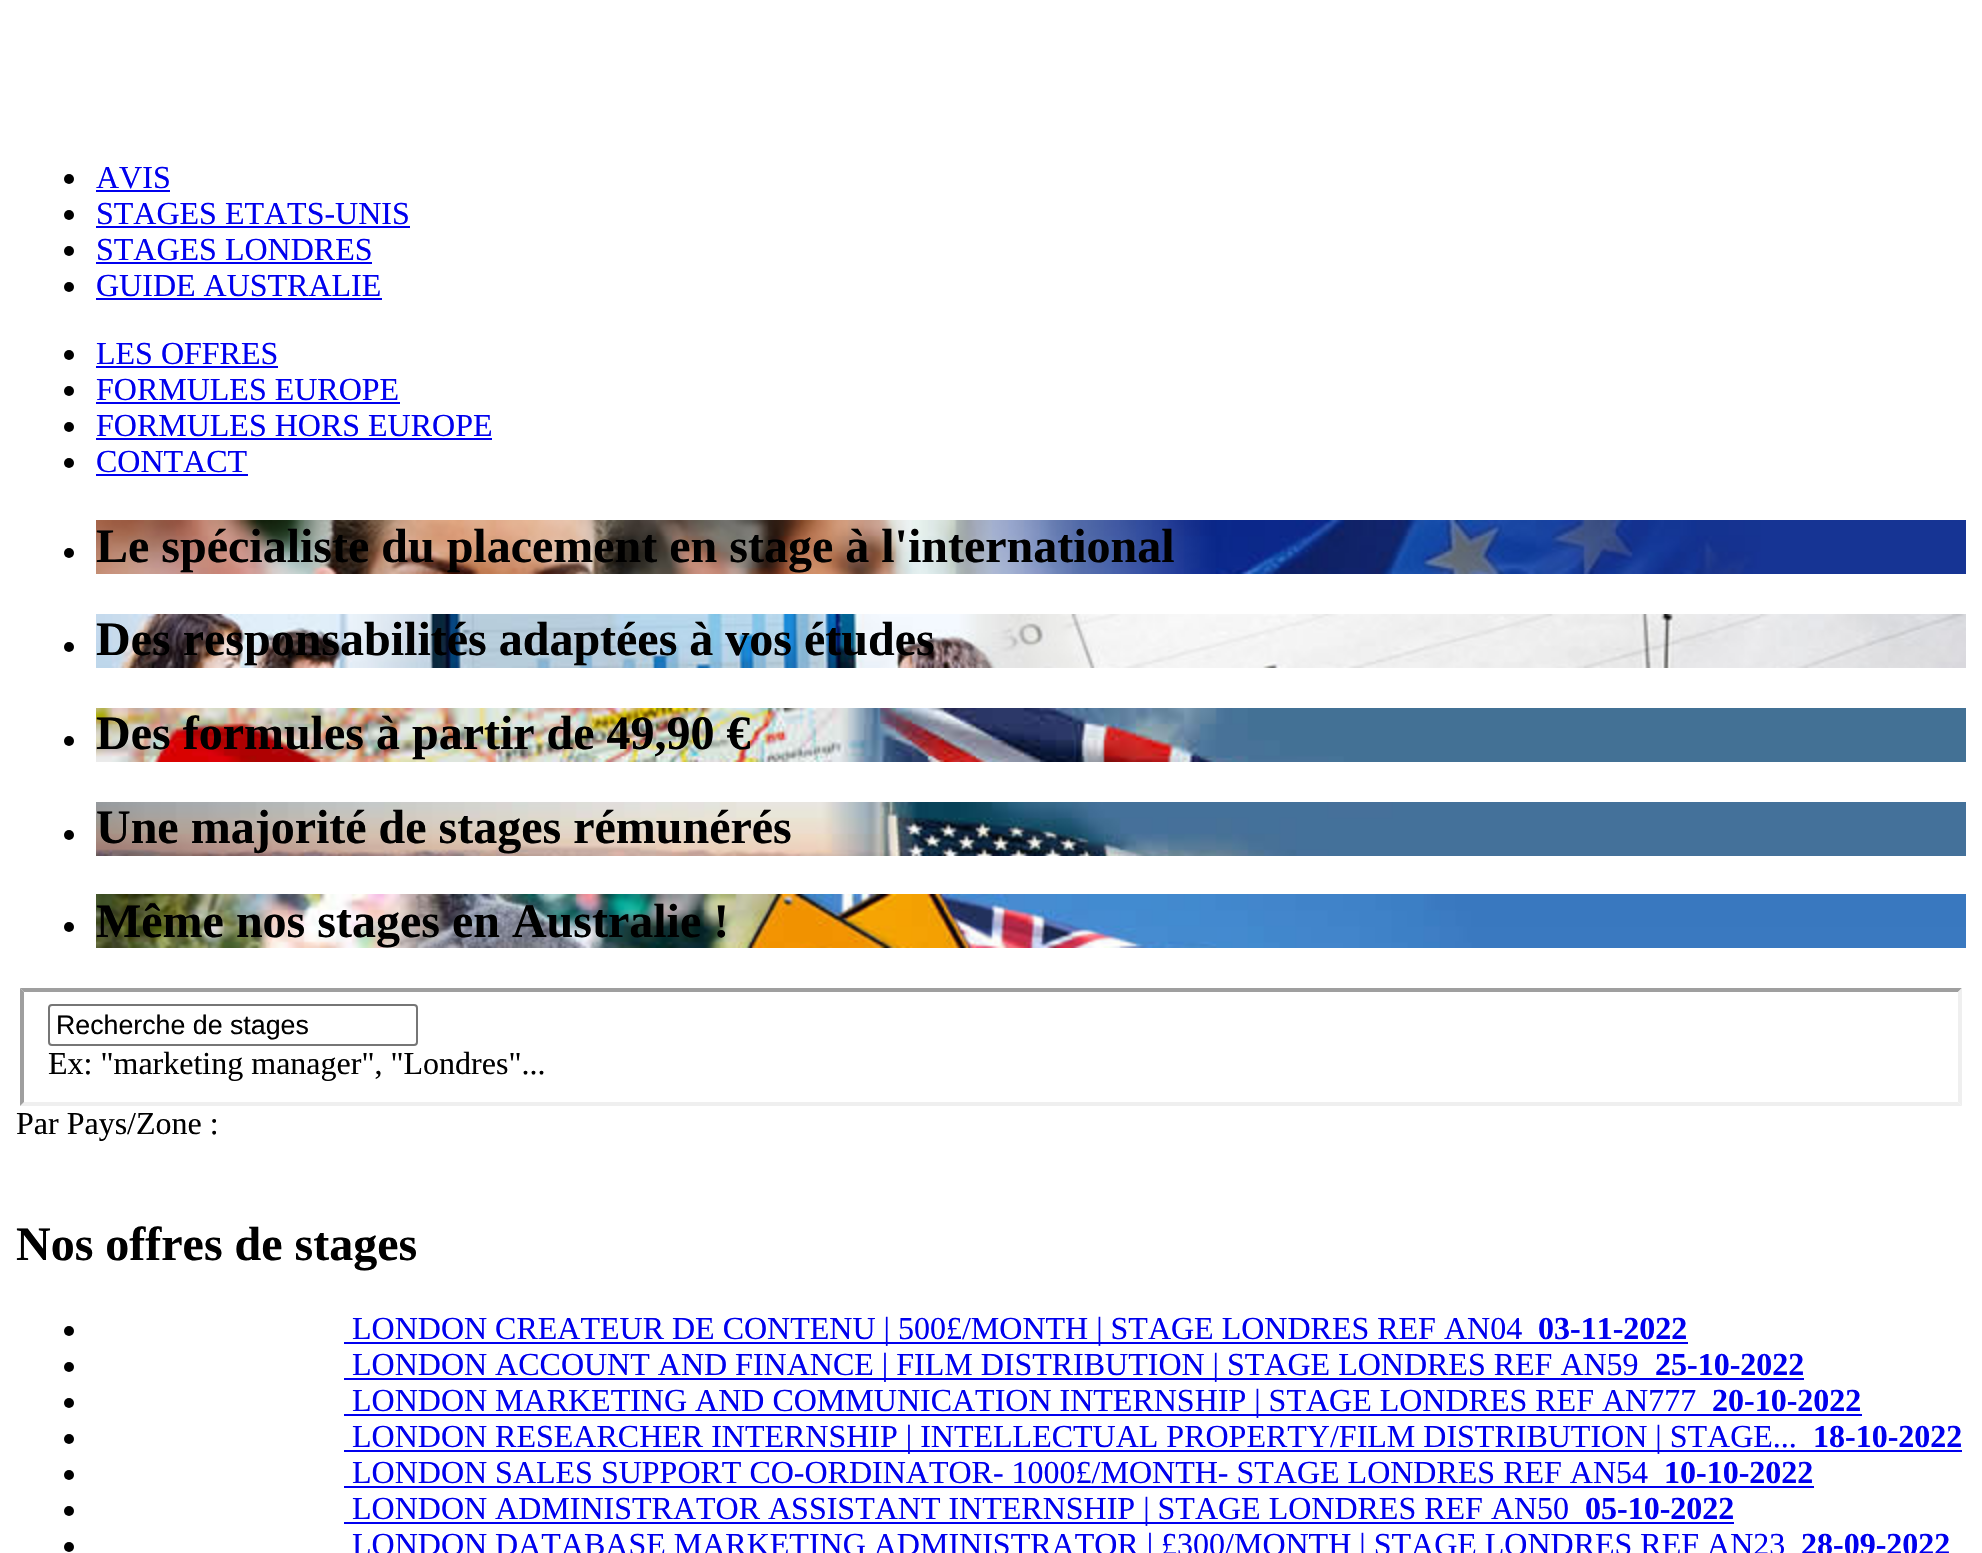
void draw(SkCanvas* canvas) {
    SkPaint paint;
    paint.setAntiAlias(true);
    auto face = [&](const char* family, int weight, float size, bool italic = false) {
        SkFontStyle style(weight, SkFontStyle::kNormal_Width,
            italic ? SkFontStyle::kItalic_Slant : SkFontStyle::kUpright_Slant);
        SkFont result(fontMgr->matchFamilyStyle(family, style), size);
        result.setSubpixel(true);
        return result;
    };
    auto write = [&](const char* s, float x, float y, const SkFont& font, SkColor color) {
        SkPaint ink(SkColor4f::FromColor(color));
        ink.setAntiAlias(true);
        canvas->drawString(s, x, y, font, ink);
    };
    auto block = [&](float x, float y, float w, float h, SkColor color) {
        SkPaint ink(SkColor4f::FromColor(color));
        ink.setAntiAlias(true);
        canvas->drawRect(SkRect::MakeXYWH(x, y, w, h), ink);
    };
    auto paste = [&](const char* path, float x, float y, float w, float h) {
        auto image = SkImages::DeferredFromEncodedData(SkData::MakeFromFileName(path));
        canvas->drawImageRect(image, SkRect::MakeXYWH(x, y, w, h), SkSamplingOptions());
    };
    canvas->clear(SK_ColorWHITE);
    paint.setColor(SK_ColorBLACK);
    canvas->drawCircle(69, 179, 5, paint);
    auto kFont1 = face("Liberation Serif", 400, 32);
    write("AVIS", 96, 188, kFont1, SkColorSetRGB(0, 0, 238));
    block(96, 190, 74, 2, SkColorSetRGB(0, 0, 238));
    canvas->drawCircle(69, 215, 5, paint);
    write("STAGES ETATS-UNIS", 96, 224, kFont1, SkColorSetRGB(0, 0, 238));
    block(96, 226, 314, 2, SkColorSetRGB(0, 0, 238));
    canvas->drawCircle(69, 251, 5, paint);
    write("STAGES LONDRES", 96, 260, kFont1, SkColorSetRGB(0, 0, 238));
    block(96, 262, 276, 2, SkColorSetRGB(0, 0, 238));
    canvas->drawCircle(69, 287, 5, paint);
    write("GUIDE AUSTRALIE", 96, 296, kFont1, SkColorSetRGB(0, 0, 238));
    block(96, 298, 286, 2, SkColorSetRGB(0, 0, 238));
    canvas->drawCircle(69, 355, 5, paint);
    write("LES OFFRES", 96, 364, kFont1, SkColorSetRGB(0, 0, 238));
    block(96, 366, 182, 2, SkColorSetRGB(0, 0, 238));
    canvas->drawCircle(69, 391, 5, paint);
    write("FORMULES EUROPE", 96, 400, kFont1, SkColorSetRGB(0, 0, 238));
    block(96, 402, 304, 2, SkColorSetRGB(0, 0, 238));
    canvas->drawCircle(69, 427, 5, paint);
    write("FORMULES HORS EUROPE", 96, 436, kFont1, SkColorSetRGB(0, 0, 238));
    block(96, 438, 396, 2, SkColorSetRGB(0, 0, 238));
    canvas->drawCircle(69, 463, 5, paint);
    write("CONTACT", 96, 472, kFont1, SkColorSetRGB(0, 0, 238));
    block(96, 474, 152, 2, SkColorSetRGB(0, 0, 238));
    paste("pic1.png", 96, 520, 1870, 54);
    canvas->drawCircle(69, 553, 5, paint);
    auto kFont2 = face("Liberation Serif", 700, 48);
    write("Le spécialiste du placement en stage à l'international", 96, 562, kFont2, SK_ColorBLACK);
    paste("pic2.png", 96, 614, 1870, 54);
    canvas->drawCircle(69, 647, 5, paint);
    write("Des responsabilités adaptées à vos études", 96, 655, kFont2, SK_ColorBLACK);
    paste("pic3.png", 96, 708, 1870, 54);
    canvas->drawCircle(69, 741, 5, paint);
    write("Des formules à partir de 49,90 €", 96, 749, kFont2, SK_ColorBLACK);
    paste("pic4.png", 96, 802, 1870, 54);
    canvas->drawCircle(69, 835, 5, paint);
    write("Une majorité de stages rémunérés", 96, 843, kFont2, SK_ColorBLACK);
    paste("pic5.png", 96, 894, 1870, 54);
    canvas->drawCircle(69, 927, 5, paint);
    write("Même nos stages en Australie !", 96, 937, kFont2, SK_ColorBLACK);
    paint.setColor(SkColorSetRGB(159, 159, 159));
    canvas->drawPath(SkPathBuilder().moveTo(20, 988).lineTo(1962, 988).lineTo(1958, 992).lineTo(24, 992).close().detach(), paint);
    paint.setColor(SkColorSetRGB(239, 239, 239));
    canvas->drawPath(SkPathBuilder().moveTo(1962, 988).lineTo(1962, 1106).lineTo(1958, 1102).lineTo(1958, 992).close().detach(), paint);
    canvas->drawPath(SkPathBuilder().moveTo(1962, 1106).lineTo(20, 1106).lineTo(24, 1102).lineTo(1958, 1102).close().detach(), paint);
    paint.setColor(SkColorSetRGB(159, 159, 159));
    canvas->drawPath(SkPathBuilder().moveTo(20, 1106).lineTo(20, 988).lineTo(24, 992).lineTo(24, 1102).close().detach(), paint);
    paint.setStyle(SkPaint::kStroke_Style);
    paint.setStrokeWidth(2);
    paint.setColor(SkColorSetRGB(118, 118, 118));
    canvas->drawRoundRect(SkRect::MakeXYWH(49, 1005, 368, 40), 3, 3, paint);
    auto kFont3 = face("Liberation Sans", 400, 26.75f);
    write("Recherche de stages", 56, 1034, kFont3, SK_ColorBLACK);
    write("Ex: \"marketing manager\", \"Londres\"...", 48, 1074, kFont1, SK_ColorBLACK);
    write("Par Pays/Zone :", 16, 1134, kFont1, SK_ColorBLACK);
    write("Nos offres de stages", 16, 1260, kFont2, SK_ColorBLACK);
    paint.setStyle(SkPaint::kFill_Style);
    paint.setColor(SK_ColorBLACK);
    canvas->drawCircle(69, 1331, 5, paint);
    block(344, 1342, 1344, 2, SkColorSetRGB(0, 0, 238));
    write("LONDON CREATEUR DE CONTENU | 500£/MONTH | STAGE LONDRES REF AN04", 352, 1339, kFont1, SkColorSetRGB(0, 0, 238));
    auto kFont4 = face("Liberation Serif", 700, 32);
    write("03-11-2022", 1538, 1339, kFont4, SkColorSetRGB(0, 0, 238));
    canvas->drawCircle(69, 1367, 5, paint);
    block(344, 1378, 1460, 2, SkColorSetRGB(0, 0, 238));
    write("LONDON ACCOUNT AND FINANCE | FILM DISTRIBUTION | STAGE LONDRES REF AN59", 352, 1375, kFont1, SkColorSetRGB(0, 0, 238));
    write("25-10-2022", 1655, 1375, kFont4, SkColorSetRGB(0, 0, 238));
    canvas->drawCircle(69, 1403, 5, paint);
    block(344, 1414, 1518, 2, SkColorSetRGB(0, 0, 238));
    write("LONDON MARKETING AND COMMUNICATION INTERNSHIP | STAGE LONDRES REF AN777", 352, 1411, kFont1, SkColorSetRGB(0, 0, 238));
    write("20-10-2022", 1712, 1411, kFont4, SkColorSetRGB(0, 0, 238));
    canvas->drawCircle(69, 1439, 5, paint);
    block(344, 1450, 1618, 2, SkColorSetRGB(0, 0, 238));
    write("LONDON RESEARCHER INTERNSHIP | INTELLECTUAL PROPERTY/FILM DISTRIBUTION | STAGE...", 352, 1447, kFont1, SkColorSetRGB(0, 0, 238));
    write("18-10-2022", 1813, 1447, kFont4, SkColorSetRGB(0, 0, 238));
    canvas->drawCircle(69, 1475, 5, paint);
    write("LONDON SALES SUPPORT CO-ORDINATOR- 1000£/MONTH- STAGE LONDRES REF AN54", 352, 1483, kFont1, SkColorSetRGB(0, 0, 238));
    block(344, 1486, 1470, 2, SkColorSetRGB(0, 0, 238));
    write("10-10-2022", 1664, 1483, kFont4, SkColorSetRGB(0, 0, 238));
    canvas->drawCircle(69, 1511, 5, paint);
    block(344, 1522, 1390, 2, SkColorSetRGB(0, 0, 238));
    write("LONDON ADMINISTRATOR ASSISTANT INTERNSHIP | STAGE LONDRES REF AN50", 352, 1519, kFont1, SkColorSetRGB(0, 0, 238));
    write("05-10-2022", 1585, 1519, kFont4, SkColorSetRGB(0, 0, 238));
    canvas->drawCircle(69, 1547, 5, paint);
    write("LONDON DATABASE MARKETING ADMINISTRATOR | £300/MONTH | STAGE LONDRES REF AN23", 352, 1555, kFont1, SkColorSetRGB(0, 0, 238));
    write("28-09-2022", 1801, 1555, kFont4, SkColorSetRGB(0, 0, 238));
}
